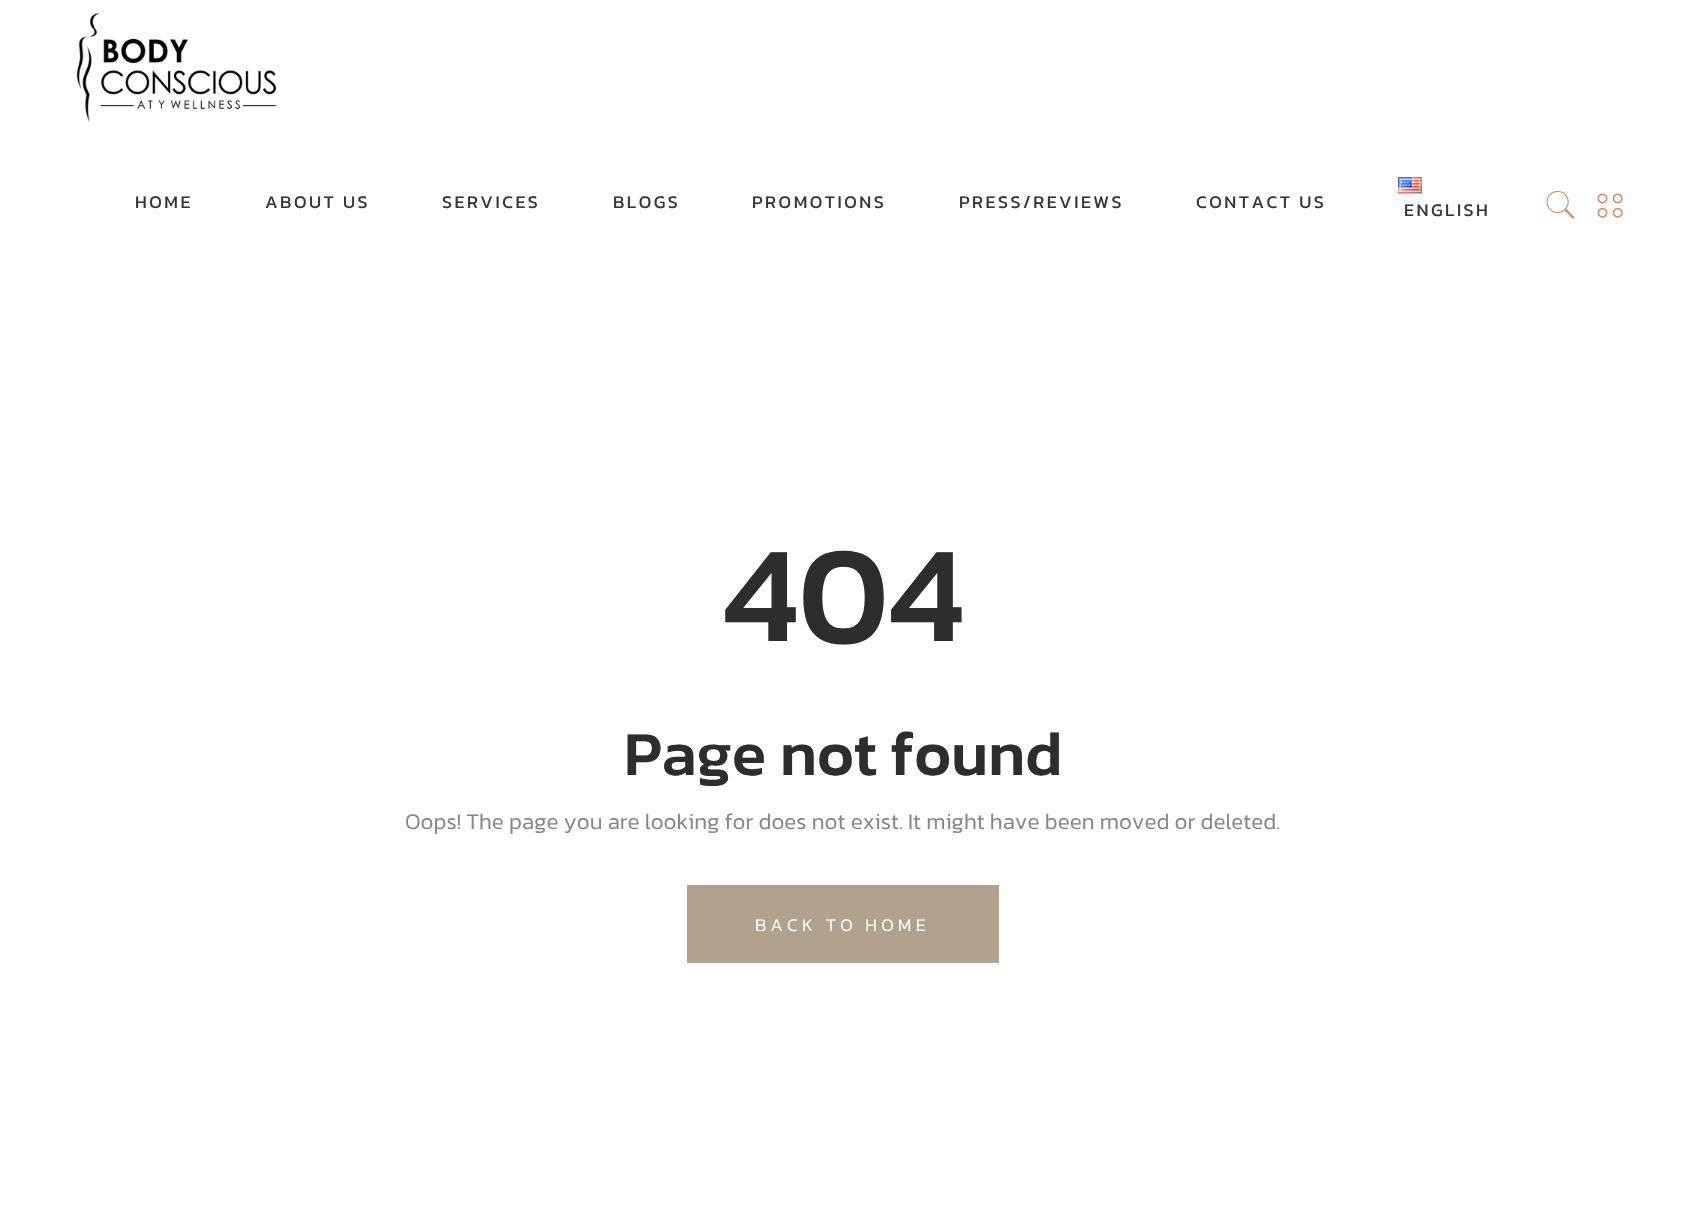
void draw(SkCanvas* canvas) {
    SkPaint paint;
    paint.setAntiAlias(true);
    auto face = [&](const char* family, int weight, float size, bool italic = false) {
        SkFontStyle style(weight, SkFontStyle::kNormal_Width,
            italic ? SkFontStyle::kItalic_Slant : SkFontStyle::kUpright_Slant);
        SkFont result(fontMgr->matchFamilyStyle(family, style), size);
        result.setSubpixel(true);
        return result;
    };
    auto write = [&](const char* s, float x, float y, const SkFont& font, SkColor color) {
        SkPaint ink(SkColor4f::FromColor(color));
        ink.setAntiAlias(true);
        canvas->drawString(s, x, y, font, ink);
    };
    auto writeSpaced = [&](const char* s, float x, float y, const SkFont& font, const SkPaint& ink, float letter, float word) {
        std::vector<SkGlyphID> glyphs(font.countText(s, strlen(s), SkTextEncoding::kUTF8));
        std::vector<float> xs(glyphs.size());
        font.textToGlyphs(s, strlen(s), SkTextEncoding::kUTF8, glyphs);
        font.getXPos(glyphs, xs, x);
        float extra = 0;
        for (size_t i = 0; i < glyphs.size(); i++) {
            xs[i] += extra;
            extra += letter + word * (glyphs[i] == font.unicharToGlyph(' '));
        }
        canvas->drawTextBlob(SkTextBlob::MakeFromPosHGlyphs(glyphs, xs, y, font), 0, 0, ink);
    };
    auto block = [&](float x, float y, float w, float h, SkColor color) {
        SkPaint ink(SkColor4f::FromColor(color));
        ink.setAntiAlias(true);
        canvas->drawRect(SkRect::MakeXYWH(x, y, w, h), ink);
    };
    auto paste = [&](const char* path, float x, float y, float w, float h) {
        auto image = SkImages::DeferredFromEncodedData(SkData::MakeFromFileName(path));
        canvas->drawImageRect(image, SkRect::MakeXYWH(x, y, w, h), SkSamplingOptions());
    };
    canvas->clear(SK_ColorWHITE);
    paste("pic1.png", 76, 12, 200, 111);
    auto kFont1 = face("Kanit", 400, 18);
    paint.setColor(SkColorSetRGB(54, 54, 54));
    writeSpaced("HOME", 135, 208, kFont1, paint, 2.5f, 0);
    writeSpaced("ABOUT US", 265, 208, kFont1, paint, 2.5f, 0);
    writeSpaced("SERVICES", 442, 208, kFont1, paint, 2.5f, 0);
    writeSpaced("BLOGS", 613, 208, kFont1, paint, 2.5f, 0);
    writeSpaced("PROMOTIONS", 752, 208, kFont1, paint, 2.5f, 0);
    writeSpaced("PRESS/REVIEWS", 959, 208, kFont1, paint, 2.5f, 0);
    writeSpaced("CONTACT US", 1196, 208, kFont1, paint, 2.5f, 0);
    paste("pic2.png", 1398, 177, 24, 17);
    writeSpaced("ENGLISH", 1404, 216, kFont1, paint, 2.5f, 0);
    paste("pic3.png", 1546, 190, 29, 29);
    paste("pic4.png", 1597, 193, 26, 25);
    auto kFont2 = face("Kanit", 500, 138);
    write("404", 723, 641, kFont2, SkColorSetRGB(45, 45, 45));
    auto kFont3 = face("Kanit", 500, 63);
    write("Page not found", 624, 775, kFont3, SkColorSetRGB(45, 45, 45));
    auto kFont4 = face("Kanit", 300, 22.5f);
    write("Oops! The page you are looking for does not exist. It might have been moved or deleted.", 405, 829, kFont4, SkColorSetRGB(134, 134, 134));
    block(687, 885, 312, 78, SkColorSetRGB(178, 161, 140));
    auto kFont5 = face("Kanit", 300, 18);
    paint.setColor(SK_ColorWHITE);
    writeSpaced("BACK TO HOME", 755, 931, kFont5, paint, 4.25f, 0);
}
